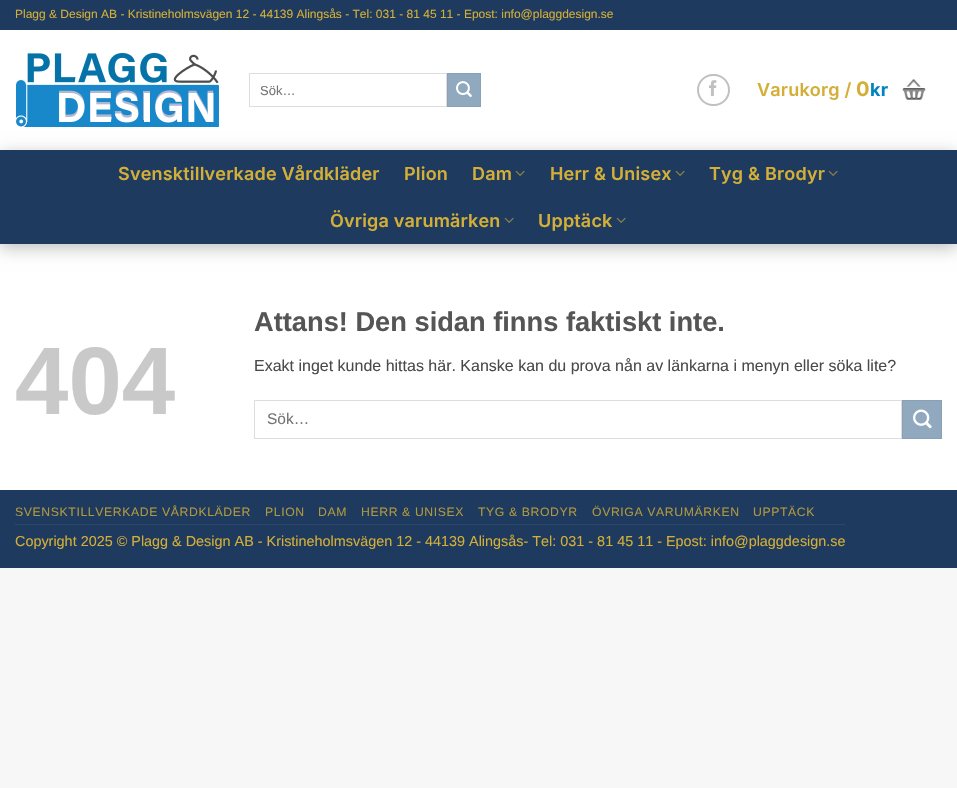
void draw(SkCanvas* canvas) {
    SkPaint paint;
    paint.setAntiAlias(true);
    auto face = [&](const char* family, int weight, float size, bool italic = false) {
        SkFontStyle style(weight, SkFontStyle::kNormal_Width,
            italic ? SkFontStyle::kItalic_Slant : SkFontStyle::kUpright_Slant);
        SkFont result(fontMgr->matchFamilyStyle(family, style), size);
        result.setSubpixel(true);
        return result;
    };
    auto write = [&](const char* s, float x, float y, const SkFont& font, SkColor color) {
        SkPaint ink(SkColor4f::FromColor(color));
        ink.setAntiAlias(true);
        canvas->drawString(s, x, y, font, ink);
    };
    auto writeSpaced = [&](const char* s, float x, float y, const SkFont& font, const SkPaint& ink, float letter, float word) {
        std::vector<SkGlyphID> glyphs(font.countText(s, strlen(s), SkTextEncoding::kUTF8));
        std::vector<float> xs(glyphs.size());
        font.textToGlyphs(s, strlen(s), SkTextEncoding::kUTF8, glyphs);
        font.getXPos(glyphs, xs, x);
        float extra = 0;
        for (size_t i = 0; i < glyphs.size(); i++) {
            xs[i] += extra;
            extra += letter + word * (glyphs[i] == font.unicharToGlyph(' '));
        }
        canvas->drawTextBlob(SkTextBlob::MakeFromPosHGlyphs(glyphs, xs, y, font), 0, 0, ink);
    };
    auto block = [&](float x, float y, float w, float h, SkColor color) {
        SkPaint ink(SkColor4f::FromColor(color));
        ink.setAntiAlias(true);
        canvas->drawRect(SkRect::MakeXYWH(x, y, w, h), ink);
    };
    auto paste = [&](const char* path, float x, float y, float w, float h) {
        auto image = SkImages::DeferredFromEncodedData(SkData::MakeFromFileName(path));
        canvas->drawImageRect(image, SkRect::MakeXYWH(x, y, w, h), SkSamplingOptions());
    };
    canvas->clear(SkColorSetRGB(247, 247, 247));
    block(0, 0, 957, 30, SkColorSetRGB(30, 58, 95));
    auto kFont1 = face("Liberation Sans", 400, 12);
    write("Plagg & Design AB - Kristineholmsvägen 12 - 44139 Alingsås - Tel: 031 - 81 45 11 - Epost: info@plaggdesign.se", 15, 18, kFont1, SkColorSetRGB(212, 175, 55));
    block(0, 30, 957, 120, SK_ColorWHITE);
    paste("pic1.png", 15, 53, 204, 74);
    paint.setStyle(SkPaint::kStroke_Style);
    paint.setStrokeWidth(1);
    paint.setColor(SkColorSetRGB(221, 221, 221));
    canvas->drawRect(SkRect::MakeXYWH(249.5f, 73.5f, 197, 33), paint);
    auto kFont2 = face("Liberation Sans", 400, 13);
    write("Sök…", 260, 95, kFont2, SkColorSetRGB(117, 117, 117));
    paint.setStyle(SkPaint::kFill_Style);
    paint.setColor(SkColorSetRGB(145, 169, 191));
    canvas->drawRect(SkRect::MakeXYWH(447.5f, 73.5f, 33, 33), paint);
    paint.setStyle(SkPaint::kStroke_Style);
    paint.setColor(SkColorSetRGB(138, 161, 181));
    canvas->drawRect(SkRect::MakeXYWH(447.5f, 73.5f, 33, 33), paint);
    paste("pic2.png", 456, 81, 16, 16);
    paint.setStrokeWidth(2);
    paint.setColor(SkColorSetRGB(192, 192, 192));
    canvas->drawRoundRect(SkRect::MakeXYWH(698, 75, 31, 30), 15, 15, paint);
    paste("pic3.png", 709, 80, 8, 16);
    auto kFont3 = face("Inter", 600, 18);
    paint.setStyle(SkPaint::kFill_Style);
    paint.setColor(SkColorSetRGB(212, 175, 55));
    writeSpaced("Varukorg /", 757, 96, kFont3, paint, 0.2f, 0);
    auto kFont4 = face("Inter", 700, 20);
    writeSpaced("0", 856, 96, kFont4, paint, 0.2f, 0);
    auto kFont5 = face("Inter", 700, 18);
    paint.setColor(SkColorSetRGB(0, 132, 193));
    writeSpaced("kr", 870, 96, kFont5, paint, 0.2f, 0);
    paste("pic4.png", 902, 79, 24, 21);
    block(0, 244, 957, 246, SK_ColorWHITE);
    paint.setColor(SkColorSetARGB(64, 0, 0, 0));
    paint.setMaskFilter(SkMaskFilter::MakeBlur(kNormal_SkBlurStyle, 8));
    canvas->drawRect(SkRect::MakeXYWH(0, 154, 957, 94), paint);
    paint.setMaskFilter(nullptr);
    block(0, 150, 957, 94, SkColorSetRGB(30, 58, 95));
    block(15, 150, 927, 1, SkColorSetRGB(34, 60, 93));
    paint.setColor(SkColorSetRGB(212, 175, 55));
    writeSpaced("Svensktillverkade Vårdkläder", 118, 180, kFont3, paint, 0.2f, 0);
    writeSpaced("Plion", 404, 180, kFont3, paint, 0.2f, 0);
    writeSpaced("Dam", 472, 180, kFont3, paint, 0.2f, 0);
    paste("pic5.png", 515, 170, 10, 6);
    writeSpaced("Herr & Unisex", 550, 180, kFont3, paint, 0.2f, 0);
    paste("pic5.png", 675, 170, 10, 6);
    writeSpaced("Tyg & Brodyr", 709, 180, kFont3, paint, 0.2f, 0);
    paste("pic5.png", 828, 170, 10, 6);
    writeSpaced("Övriga varumärken", 330, 227, kFont3, paint, 0.2f, 0);
    paste("pic5.png", 504, 217, 10, 6);
    writeSpaced("Upptäck", 538, 227, kFont3, paint, 0.2f, 0);
    paste("pic5.png", 616, 217, 10, 6);
    auto kFont6 = face("Liberation Sans", 700, 96);
    write("404", 15, 414, kFont6, SkColorSetRGB(201, 201, 201));
    auto kFont7 = face("Liberation Sans", 700, 27.25f);
    write("Attans! Den sidan finns faktiskt inte.", 254, 331, kFont7, SkColorSetRGB(85, 85, 85));
    auto kFont8 = face("Liberation Sans", 400, 16);
    write("Exakt inget kunde hittas här. Kanske kan du prova nån av länkarna i menyn eller söka lite?", 254, 371, kFont8, SkColorSetRGB(74, 74, 74));
    paint.setStyle(SkPaint::kStroke_Style);
    paint.setStrokeWidth(1);
    paint.setColor(SkColorSetRGB(221, 221, 221));
    canvas->drawRect(SkRect::MakeXYWH(254.5f, 400.5f, 647, 38), paint);
    auto kFont9 = face("Liberation Sans", 400, 15.5f);
    write("Sök…", 267, 424, kFont9, SkColorSetRGB(117, 117, 117));
    paint.setStyle(SkPaint::kFill_Style);
    paint.setColor(SkColorSetRGB(145, 169, 191));
    canvas->drawRect(SkRect::MakeXYWH(902.5f, 400.5f, 39, 38), paint);
    paint.setStyle(SkPaint::kStroke_Style);
    paint.setColor(SkColorSetRGB(138, 161, 181));
    canvas->drawRect(SkRect::MakeXYWH(902.5f, 400.5f, 39, 38), paint);
    paste("pic6.png", 913, 409, 19, 20);
    block(0, 490, 957, 78, SkColorSetRGB(30, 58, 95));
    block(15, 524, 830, 1, SkColorSetRGB(44, 71, 105));
    auto kFont10 = face("Liberation Sans", 400, 12.25f);
    paint.setStyle(SkPaint::kFill_Style);
    paint.setColor(SkColorSetRGB(176, 152, 63));
    writeSpaced("SVENSKTILLVERKADE VÅRDKLÄDER", 15, 516, kFont10, paint, 0.6f, 0);
    writeSpaced("PLION", 265, 516, kFont10, paint, 0.6f, 0);
    writeSpaced("DAM", 318, 516, kFont10, paint, 0.6f, 0);
    writeSpaced("HERR & UNISEX", 361, 516, kFont10, paint, 0.6f, 0);
    writeSpaced("TYG & BRODYR", 478, 516, kFont10, paint, 0.6f, 0);
    writeSpaced("ÖVRIGA VARUMÄRKEN", 592, 516, kFont10, paint, 0.6f, 0);
    writeSpaced("UPPTÄCK", 753, 516, kFont10, paint, 0.6f, 0);
    auto kFont11 = face("Liberation Sans", 400, 14.4f);
    write("Copyright 2025 © Plagg & Design AB - Kristineholmsvägen 12 - 44139 Alingsås- Tel: 031 - 81 45 11 - Epost: info@plaggdesign.se", 15, 546, kFont11, SkColorSetRGB(212, 175, 55));
}
